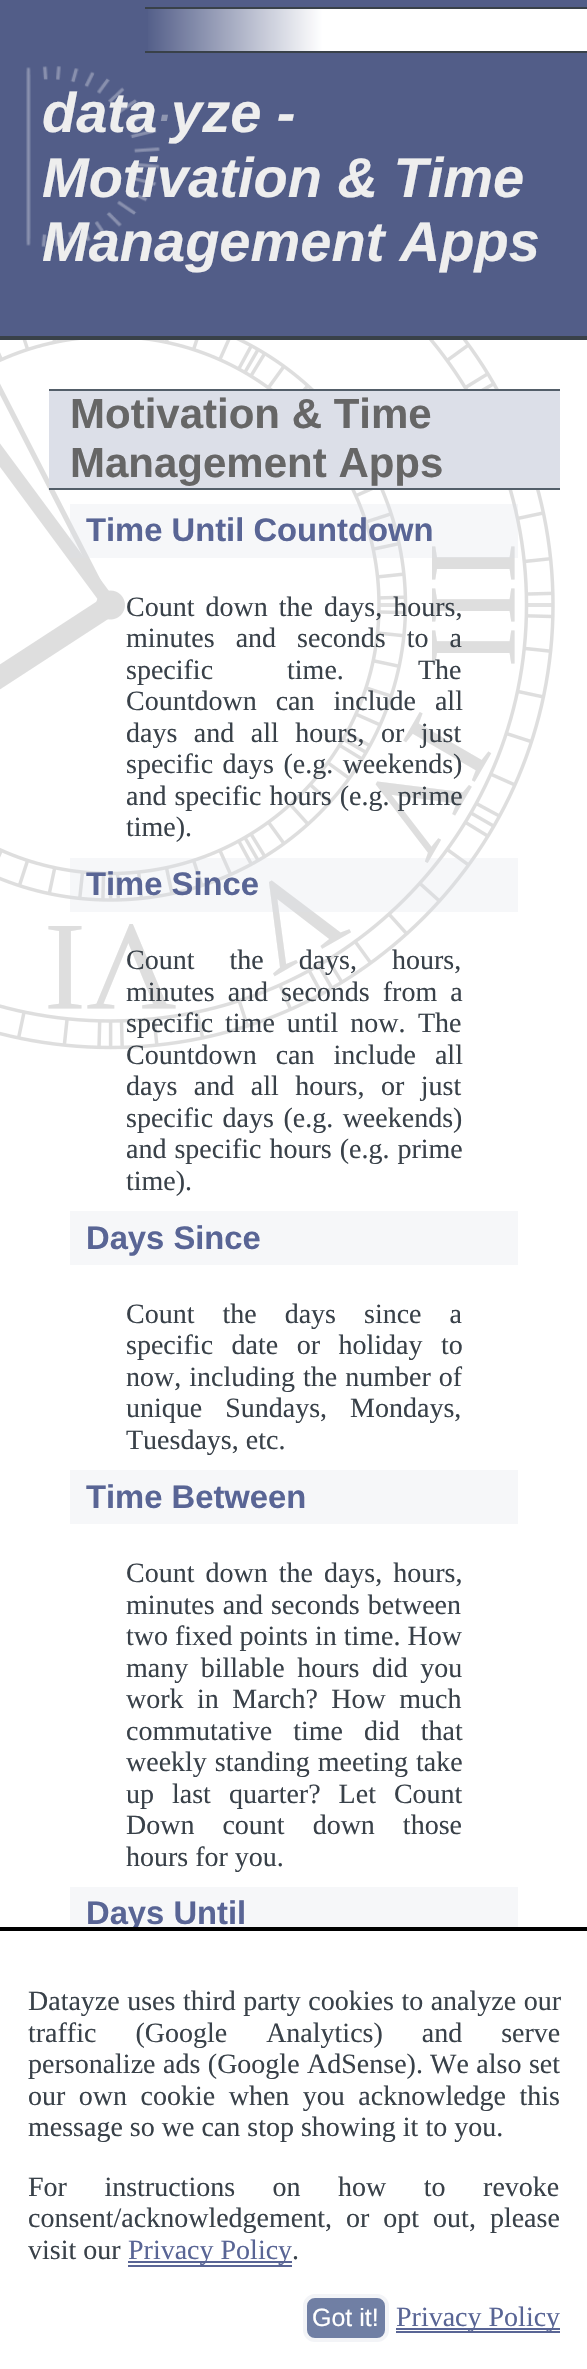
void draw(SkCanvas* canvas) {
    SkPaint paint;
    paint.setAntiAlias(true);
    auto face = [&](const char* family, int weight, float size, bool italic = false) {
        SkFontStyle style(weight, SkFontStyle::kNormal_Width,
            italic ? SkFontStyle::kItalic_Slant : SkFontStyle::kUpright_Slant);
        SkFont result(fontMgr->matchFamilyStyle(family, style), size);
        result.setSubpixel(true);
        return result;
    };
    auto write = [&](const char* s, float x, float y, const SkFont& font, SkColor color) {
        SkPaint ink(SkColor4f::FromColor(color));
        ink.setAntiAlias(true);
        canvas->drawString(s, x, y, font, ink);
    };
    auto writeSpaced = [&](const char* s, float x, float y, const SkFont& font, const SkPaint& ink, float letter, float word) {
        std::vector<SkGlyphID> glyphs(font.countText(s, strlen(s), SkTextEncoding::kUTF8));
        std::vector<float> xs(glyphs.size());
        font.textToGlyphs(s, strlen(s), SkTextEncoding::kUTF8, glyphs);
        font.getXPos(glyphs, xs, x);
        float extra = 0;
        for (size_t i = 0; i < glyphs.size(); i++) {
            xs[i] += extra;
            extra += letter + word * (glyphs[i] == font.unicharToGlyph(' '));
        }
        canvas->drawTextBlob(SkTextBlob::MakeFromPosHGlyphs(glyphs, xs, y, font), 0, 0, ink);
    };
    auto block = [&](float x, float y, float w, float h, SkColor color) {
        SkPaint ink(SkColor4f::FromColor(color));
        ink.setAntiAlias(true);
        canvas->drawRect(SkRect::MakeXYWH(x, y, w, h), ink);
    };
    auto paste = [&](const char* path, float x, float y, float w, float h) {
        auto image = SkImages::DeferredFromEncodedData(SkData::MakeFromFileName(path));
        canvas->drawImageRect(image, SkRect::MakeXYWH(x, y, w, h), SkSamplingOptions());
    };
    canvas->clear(SK_ColorWHITE);
    block(0, 0, 587, 336, SkColorSetRGB(82, 93, 136));
    paste("pic1.png", 26, 66, 134, 181);
    block(0, 336, 587, 4, SkColorSetRGB(57, 65, 73));
    {
        const SkColor colors[] = {SkColorSetRGB(82, 93, 136), SK_ColorWHITE};
        const float stops[] = {0, 0.4f};
        const SkPoint ends[] = {{145, 30}, {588, 30}};
        paint.setShader(SkGradientShader::MakeLinear(ends, colors, stops, 2, SkTileMode::kClamp));
        paint.setAlpha(255);
    }
    canvas->drawRect(SkRect::MakeXYWH(148, 9, 439, 42), paint);
    block(145, 7, 442, 2, SkColorSetRGB(57, 65, 73));
    block(145, 51, 442, 2, SkColorSetRGB(57, 65, 73));
    auto kFont1 = face("Liberation Sans", 700, 56, true);
    write("data", 42, 132, kFont1, SkColorSetRGB(238, 238, 238));
    write("yze -", 171, 132, kFont1, SkColorSetRGB(238, 238, 238));
    auto kFont2 = face("Liberation Sans", 700, 42, true);
    write("·", 157, 132, kFont2, SkColorSetRGB(144, 151, 177));
    write("Motivation & Time", 42, 197, kFont1, SkColorSetRGB(238, 238, 238));
    write("Management Apps", 42, 261, kFont1, SkColorSetRGB(238, 238, 238));
    paste("pic2.png", 0, 340, 555, 710);
    block(49, 391, 511, 97, SkColorSetRGB(220, 223, 232));
    block(49, 389, 511, 2, SkColorSetRGB(83, 94, 105));
    block(49, 488, 511, 2, SkColorSetRGB(83, 94, 105));
    auto kFont3 = face("Liberation Sans", 700, 42);
    write("Motivation & Time", 70, 428, kFont3, SkColorSetRGB(102, 102, 102));
    write("Management Apps", 70, 477, kFont3, SkColorSetRGB(102, 102, 102));
    auto kFont4 = face("Liberation Serif", 400, 126);
    canvas->save();
    canvas->rotate(90, 432, 542);
    write("III", 432, 542, kFont4, SkColorSetRGB(222, 222, 222));
    canvas->restore();
    block(70, 504, 448, 54, SkColorSetARGB(64, 220, 223, 232));
    auto kFont5 = face("Liberation Sans", 700, 32.75f);
    write("Time Until Countdown", 86, 541, kFont5, SkColorSetRGB(89, 101, 149));
    auto kFont6 = face("Liberation Serif", 400, 28);
    paint.setShader(nullptr);
    paint.setColor(SkColorSetRGB(57, 65, 73));
    writeSpaced("Count down the days, hours,", 126, 616, kFont6, paint, 0, 4);
    writeSpaced("minutes and seconds to a", 126, 647, kFont6, paint, 0, 14);
    writeSpaced("specific time.", 126, 679, kFont6, paint, 0, 67);
    write("The", 418, 679, kFont6, SkColorSetRGB(57, 65, 73));
    writeSpaced("Countdown can include all", 126, 710, kFont6, paint, 0, 12);
    canvas->save();
    canvas->rotate(120, 422, 708);
    write("IV", 422, 708, kFont4, SkColorSetRGB(222, 222, 222));
    canvas->restore();
    writeSpaced("days and all hours, or just", 126, 742, kFont6, paint, 0, 9.5f);
    writeSpaced("specific days (e.g. weekends)", 126, 773, kFont6, paint, 0, 2.5f);
    writeSpaced("and specific hours (e.g. prime", 126, 805, kFont6, paint, 0, 1);
    write("time).", 126, 836, kFont6, SkColorSetRGB(57, 65, 73));
    canvas->save();
    canvas->rotate(150, 311, 860);
    write("V", 311, 860, kFont4, SkColorSetRGB(222, 222, 222));
    canvas->restore();
    block(70, 858, 448, 54, SkColorSetARGB(64, 220, 223, 232));
    write("Time Since", 86, 895, kFont5, SkColorSetRGB(89, 101, 149));
    canvas->save();
    canvas->rotate(180, 177, 926);
    write("VI", 177, 926, kFont4, SkColorSetRGB(222, 222, 222));
    canvas->restore();
    writeSpaced("Count the days, hours,", 126, 969, kFont6, paint, 0, 28);
    writeSpaced("minutes and seconds from a", 126, 1001, kFont6, paint, 0, 6);
    writeSpaced("specific time until now.", 126, 1032, kFont6, paint, 0, 5);
    write("The", 418, 1032, kFont6, SkColorSetRGB(57, 65, 73));
    writeSpaced("Countdown can include all", 126, 1064, kFont6, paint, 0, 12);
    writeSpaced("days and all hours, or just", 126, 1095, kFont6, paint, 0, 9.5f);
    writeSpaced("specific days (e.g. weekends)", 126, 1127, kFont6, paint, 0, 2.5f);
    writeSpaced("and specific hours (e.g. prime", 126, 1158, kFont6, paint, 0, 1);
    write("time).", 126, 1190, kFont6, SkColorSetRGB(57, 65, 73));
    block(70, 1211, 448, 54, SkColorSetRGB(246, 247, 249));
    write("Days Since", 86, 1249, kFont5, SkColorSetRGB(89, 101, 149));
    writeSpaced("Count the days since a", 126, 1323, kFont6, paint, 0, 21);
    writeSpaced("specific date or holiday to", 126, 1354, kFont6, paint, 0, 11.5f);
    writeSpaced("now, including the number of", 126, 1386, kFont6, paint, 0, 1);
    writeSpaced("unique Sundays, Mondays,", 126, 1417, kFont6, paint, 0, 16);
    write("Tuesdays, etc.", 126, 1449, kFont6, SkColorSetRGB(57, 65, 73));
    block(70, 1470, 448, 54, SkColorSetRGB(246, 247, 249));
    write("Time Between", 86, 1508, kFont5, SkColorSetRGB(89, 101, 149));
    writeSpaced("Count down the days, hours,", 126, 1582, kFont6, paint, 0, 4);
    writeSpaced("minutes and seconds between", 126, 1614, kFont6, paint, 0, 1);
    write("two fixed points in time. How", 126, 1645, kFont6, SkColorSetRGB(57, 65, 73));
    writeSpaced("many billable hours did you", 126, 1677, kFont6, paint, 0, 5.5f);
    writeSpaced("work in March? How much", 126, 1708, kFont6, paint, 0, 6.5f);
    writeSpaced("commutative time did that", 126, 1740, kFont6, paint, 0, 14);
    writeSpaced("weekly standing meeting take", 126, 1771, kFont6, paint, 0, 1);
    writeSpaced("up last quarter? Let Count", 126, 1803, kFont6, paint, 0, 11);
    writeSpaced("Down count down those", 126, 1834, kFont6, paint, 0, 21);
    write("hours for you.", 126, 1866, kFont6, SkColorSetRGB(57, 65, 73));
    block(70, 1887, 448, 40, SkColorSetRGB(246, 247, 249));
    write("Days Until", 86, 1924, kFont5, SkColorSetRGB(89, 101, 149));
    block(0, 1927, 587, 4, SK_ColorBLACK);
    writeSpaced("Datayze uses third party cookies to analyze our", 28, 2010, kFont6, paint, 0, 0.5f);
    writeSpaced("traffic (Google Analytics) and serve", 28, 2042, kFont6, paint, 0, 32);
    writeSpaced("personalize ads (Google AdSense).", 28, 2073, kFont6, paint, 0, 0.5f);
    writeSpaced("We also set", 430, 2073, kFont6, paint, 0, 0.5f);
    writeSpaced("our own cookie when you acknowledge this", 28, 2105, kFont6, paint, 0, 6.5f);
    write("message so we can stop showing it to you.", 28, 2136, kFont6, SkColorSetRGB(57, 65, 73));
    writeSpaced("For instructions on how to revoke", 28, 2196, kFont6, paint, 0, 30.5f);
    writeSpaced("consent/acknowledgement, or opt out, please", 28, 2227, kFont6, paint, 0, 7);
    write("visit our", 28, 2259, kFont6, SkColorSetRGB(57, 65, 73));
    block(128, 2265, 164, 2, SkColorSetRGB(89, 101, 149));
    block(128, 2261, 164, 2, SkColorSetRGB(89, 101, 149));
    write("Privacy Policy", 128, 2259, kFont6, SkColorSetRGB(89, 101, 149));
    write(".", 292, 2259, kFont6, SkColorSetRGB(57, 65, 73));
    paint.setColor(SkColorSetRGB(112, 127, 164));
    canvas->drawRoundRect(SkRect::MakeXYWH(305, 2296, 82, 44), 10, 10, paint);
    paint.setStyle(SkPaint::kStroke_Style);
    paint.setStrokeWidth(4);
    paint.setColor(SkColorSetRGB(243, 244, 247));
    canvas->drawRoundRect(SkRect::MakeXYWH(305, 2296, 82, 44), 10, 10, paint);
    auto kFont7 = face("Liberation Sans", 400, 25);
    write("Got it!", 312, 2326, kFont7, SK_ColorWHITE);
    block(396, 2331, 164, 2, SkColorSetRGB(89, 101, 149));
    block(396, 2328, 164, 2, SkColorSetRGB(89, 101, 149));
    write("Privacy Policy", 396, 2326, kFont6, SkColorSetRGB(89, 101, 149));
}
